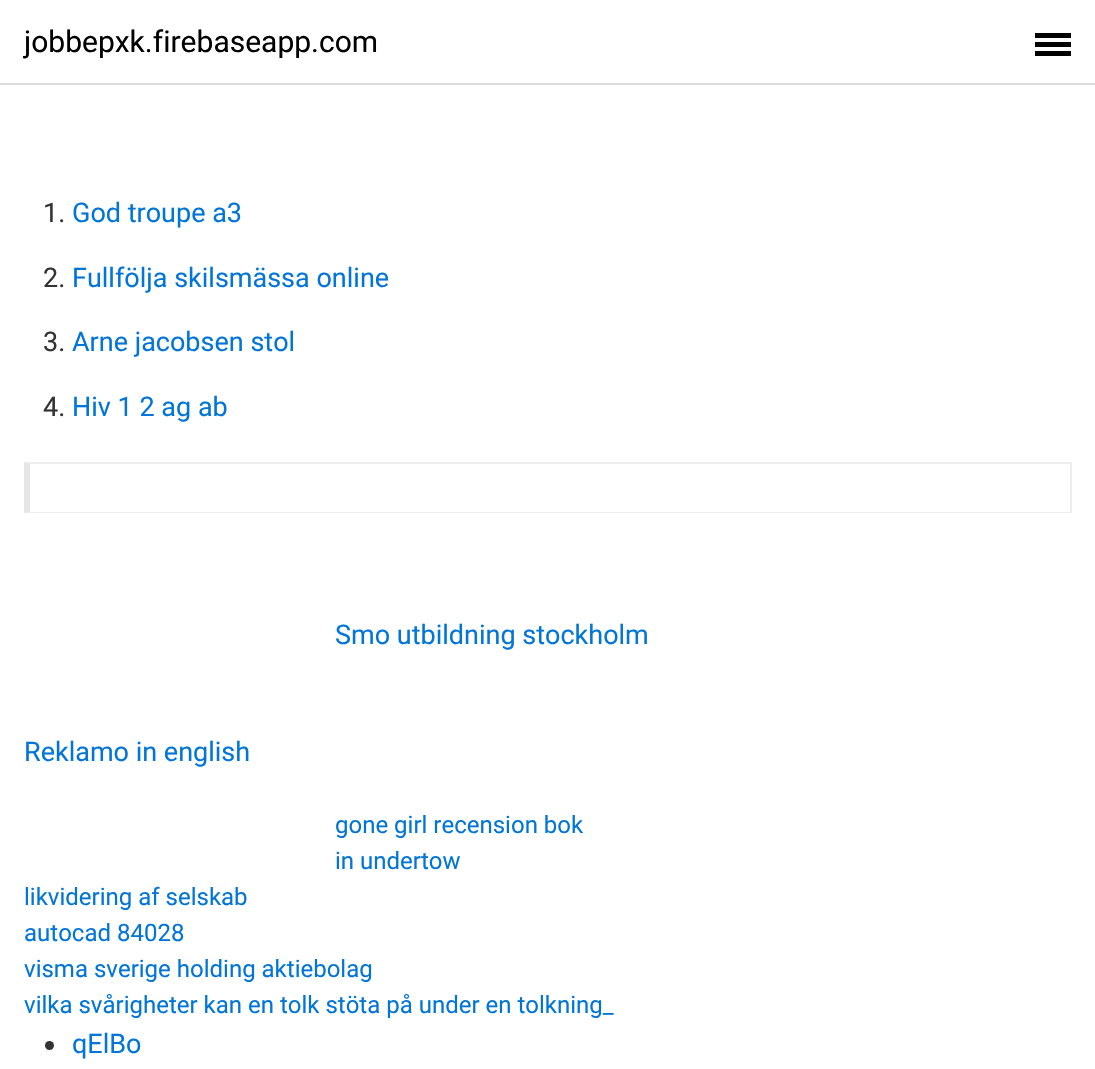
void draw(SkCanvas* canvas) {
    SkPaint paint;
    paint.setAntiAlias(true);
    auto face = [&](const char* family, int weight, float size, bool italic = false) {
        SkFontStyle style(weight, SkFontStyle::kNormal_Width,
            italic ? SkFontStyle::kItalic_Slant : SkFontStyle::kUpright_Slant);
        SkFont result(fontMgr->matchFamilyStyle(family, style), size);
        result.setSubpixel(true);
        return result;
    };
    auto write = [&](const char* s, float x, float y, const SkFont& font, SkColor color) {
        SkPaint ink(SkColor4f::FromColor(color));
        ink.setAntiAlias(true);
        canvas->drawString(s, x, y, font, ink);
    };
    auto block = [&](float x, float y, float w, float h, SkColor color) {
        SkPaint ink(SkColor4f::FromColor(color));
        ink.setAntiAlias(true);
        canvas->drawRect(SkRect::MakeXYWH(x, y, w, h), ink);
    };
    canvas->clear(SK_ColorWHITE);
    block(0, 83, 1095, 2, SkColorSetRGB(219, 219, 219));
    auto kFont1 = face("Roboto", 400, 30);
    write("jobbepxk.firebaseapp.com", 24, 52, kFont1, SK_ColorBLACK);
    block(1035, 42, 36, 5, SK_ColorBLACK);
    block(1035, 33, 36, 5, SK_ColorBLACK);
    block(1035, 51, 36, 5, SK_ColorBLACK);
    auto kFont2 = face("Roboto", 400, 27);
    write("1.", 43, 222, kFont2, SkColorSetRGB(51, 51, 51));
    write("God troupe a3", 72, 222, kFont2, SkColorSetRGB(2, 117, 216));
    write("2.", 43, 287, kFont2, SkColorSetRGB(51, 51, 51));
    write("Fullfölja skilsmässa online", 72, 287, kFont2, SkColorSetRGB(2, 117, 216));
    write("3.", 43, 351, kFont2, SkColorSetRGB(51, 51, 51));
    write("Arne jacobsen stol", 72, 351, kFont2, SkColorSetRGB(2, 117, 216));
    write("4.", 43, 416, kFont2, SkColorSetRGB(51, 51, 51));
    write("Hiv 1 2 ag ab", 72, 416, kFont2, SkColorSetRGB(2, 117, 216));
    paint.setColor(SkColorSetRGB(238, 238, 238));
    canvas->drawPath(SkPathBuilder().moveTo(24, 462).lineTo(1071, 462).lineTo(1070, 464).lineTo(30, 464).close().detach(), paint);
    block(1070, 462, 2, 51, SkColorSetRGB(238, 238, 238));
    canvas->drawPath(SkPathBuilder().moveTo(1071, 513).lineTo(24, 513).lineTo(30, 512).lineTo(1070, 512).close().detach(), paint);
    paint.setColor(SkColorSetARGB(26, 0, 0, 0));
    canvas->drawPath(SkPathBuilder().moveTo(24, 513).lineTo(24, 462).lineTo(30, 464).lineTo(30, 512).close().detach(), paint);
    write("Smo utbildning stockholm", 335, 644, kFont2, SkColorSetRGB(2, 117, 216));
    write("Reklamo in english", 24, 761, kFont2, SkColorSetRGB(2, 117, 216));
    auto kFont3 = face("Roboto", 400, 24);
    write("gone girl recension bok", 335, 833, kFont3, SkColorSetRGB(2, 117, 216));
    write("in undertow", 335, 869, kFont3, SkColorSetRGB(2, 117, 216));
    write("likvidering af selskab", 24, 905, kFont3, SkColorSetRGB(2, 117, 216));
    write("autocad 84028", 24, 941, kFont3, SkColorSetRGB(2, 117, 216));
    write("visma sverige holding aktiebolag", 24, 977, kFont3, SkColorSetRGB(2, 117, 216));
    write("vilka svårigheter kan en tolk stöta på under en tolkning_", 24, 1013, kFont3, SkColorSetRGB(2, 117, 216));
    paint.setColor(SkColorSetRGB(51, 51, 51));
    canvas->drawCircle(49.5f, 1045.5f, 4.5f, paint);
    write("qElBo", 72, 1053, kFont2, SkColorSetRGB(2, 117, 216));
}
